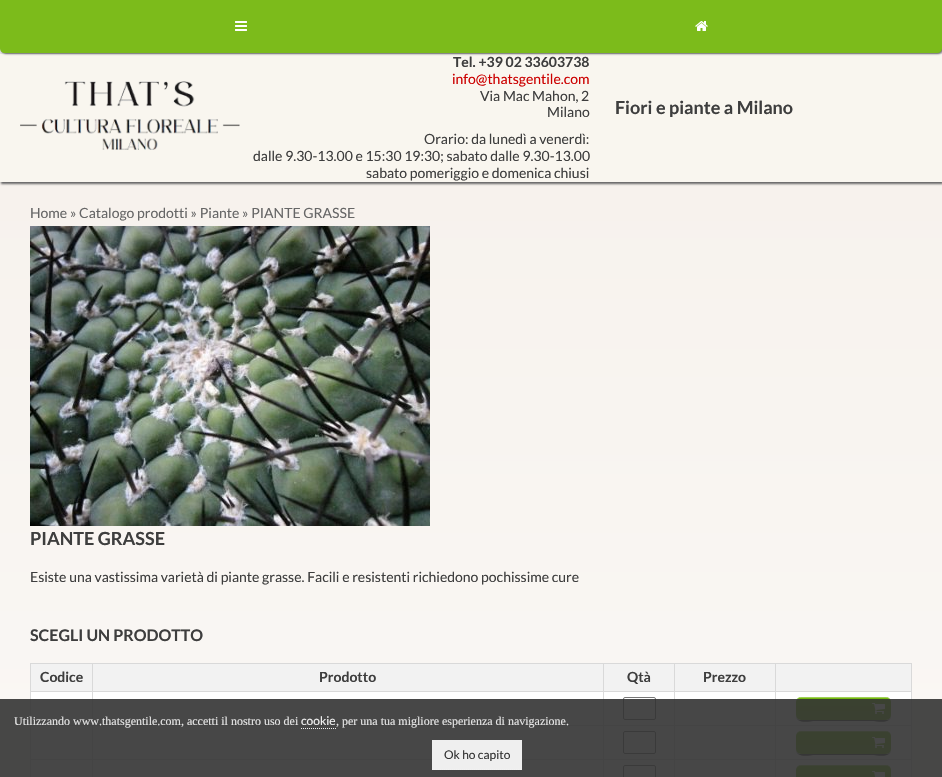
void draw(SkCanvas* canvas) {
    SkPaint paint;
    paint.setAntiAlias(true);
    auto face = [&](const char* family, int weight, float size, bool italic = false) {
        SkFontStyle style(weight, SkFontStyle::kNormal_Width,
            italic ? SkFontStyle::kItalic_Slant : SkFontStyle::kUpright_Slant);
        SkFont result(fontMgr->matchFamilyStyle(family, style), size);
        result.setSubpixel(true);
        return result;
    };
    auto write = [&](const char* s, float x, float y, const SkFont& font, SkColor color) {
        SkPaint ink(SkColor4f::FromColor(color));
        ink.setAntiAlias(true);
        canvas->drawString(s, x, y, font, ink);
    };
    auto block = [&](float x, float y, float w, float h, SkColor color) {
        SkPaint ink(SkColor4f::FromColor(color));
        ink.setAntiAlias(true);
        canvas->drawRect(SkRect::MakeXYWH(x, y, w, h), ink);
    };
    auto paste = [&](const char* path, float x, float y, float w, float h) {
        auto image = SkImages::DeferredFromEncodedData(SkData::MakeFromFileName(path));
        canvas->drawImageRect(image, SkRect::MakeXYWH(x, y, w, h), SkSamplingOptions());
    };
    canvas->clear(SK_ColorWHITE);
    {
        const SkColor colors[] = {SkColorSetRGB(233, 233, 233), SkColorSetRGB(147, 147, 147)};
        const float stops[] = {0, 1};
        const SkPoint ends[] = {{471, 0}, {471, 777}};
        paint.setShader(SkGradientShader::MakeLinear(ends, colors, stops, 2, SkTileMode::kClamp));
        paint.setAlpha(255);
    }
    canvas->drawRect(SkRect::MakeXYWH(0, 48, 942, 6), paint);
    {
        const SkColor colors[] = {SkColorSetRGB(251, 249, 247), SkColorSetRGB(247, 242, 237)};
        const float stops[] = {0, 1};
        const SkPoint ends[] = {{471, 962}, {471, 182}};
        paint.setShader(SkGradientShader::MakeLinear(ends, colors, stops, 2, SkTileMode::kClamp));
        paint.setAlpha(255);
    }
    canvas->drawRect(SkRect::MakeXYWH(0, 182, 942, 595), paint);
    paint.setShader(nullptr);
    paint.setColor(SkColorSetRGB(102, 102, 102));
    paint.setMaskFilter(SkMaskFilter::MakeBlur(kNormal_SkBlurStyle, 1));
    canvas->drawRect(SkRect::MakeXYWH(1, 56, 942, 128), paint);
    paint.setMaskFilter(nullptr);
    block(0, 54, 942, 128, SkColorSetRGB(249, 246, 239));
    paint.setMaskFilter(SkMaskFilter::MakeBlur(kNormal_SkBlurStyle, 1));
    canvas->drawRoundRect(SkRect::MakeXYWH(1, 1, 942, 53), 5, 5, paint);
    paint.setMaskFilter(nullptr);
    paint.setColor(SkColorSetRGB(124, 187, 27));
    canvas->drawPath(SkPathBuilder().moveTo(0, 0).lineTo(942, 0).lineTo(942, 48).cubicTo(942, 51, 940, 53, 937, 53).lineTo(5, 53).cubicTo(2, 53, 0, 51, 0, 48).close().detach(), paint);
    paste("pic1.png", 235, 21, 12, 10);
    paste("pic2.png", 695, 21, 13, 10);
    paste("pic3.png", 20, 81, 220, 69);
    auto kFont1 = face("Lato", 700, 14);
    write("Tel. +39 02 33603738", 453, 67, kFont1, SkColorSetRGB(62, 62, 62));
    auto kFont2 = face("Lato", 400, 14);
    write("info@thatsgentile.com", 452, 84, kFont2, SkColorSetRGB(204, 0, 0));
    write("Via Mac Mahon, 2", 480, 101, kFont2, SkColorSetRGB(62, 62, 62));
    write("Milano", 547, 117, kFont2, SkColorSetRGB(62, 62, 62));
    write("Orario: da lunedì a venerdì:", 424, 144, kFont2, SkColorSetRGB(62, 62, 62));
    write("dalle 9.30-13.00 e 15:30 19:30; sabato dalle 9.30-13.00", 253, 161, kFont2, SkColorSetRGB(62, 62, 62));
    write("sabato pomeriggio e domenica chiusi", 366, 178, kFont2, SkColorSetRGB(62, 62, 62));
    auto kFont3 = face("Lato", 700, 18);
    write("Fiori e piante a Milano", 615, 114, kFont3, SkColorSetRGB(62, 62, 62));
    write("Home » Catalogo prodotti » Piante » PIANTE GRASSE", 30, 218, kFont2, SkColorSetRGB(102, 102, 102));
    paste("pic4.png", 30, 226, 400, 300);
    write("PIANTE GRASSE", 30, 545, kFont3, SkColorSetRGB(62, 62, 62));
    write("Esiste una vastissima varietà di piante grasse. Facili e resistenti richiedono pochissime cure", 30, 582, kFont2, SkColorSetRGB(62, 62, 62));
    auto kFont4 = face("Lato", 700, 16);
    write("SCEGLI UN PRODOTTO", 30, 641, kFont4, SkColorSetRGB(62, 62, 62));
    block(31, 664, 61, 27, SkColorSetRGB(242, 242, 242));
    block(775, 663, 137, 1, SkColorSetRGB(217, 217, 217));
    block(775, 725, 137, 1, SkColorSetRGB(219, 219, 219));
    block(775, 759, 137, 1, SkColorSetRGB(219, 219, 219));
    block(911, 759, 1, 18, SkColorSetRGB(219, 219, 219));
    block(911, 691, 1, 69, SkColorSetRGB(219, 219, 219));
    block(911, 663, 1, 29, SkColorSetRGB(217, 217, 217));
    block(775, 759, 1, 18, SkColorSetRGB(219, 219, 219));
    block(674, 759, 102, 1, SkColorSetRGB(219, 219, 219));
    block(775, 725, 1, 35, SkColorSetRGB(219, 219, 219));
    block(674, 725, 102, 1, SkColorSetRGB(219, 219, 219));
    block(775, 691, 1, 35, SkColorSetRGB(219, 219, 219));
    block(775, 691, 137, 1, SkColorSetRGB(217, 217, 217));
    block(775, 663, 1, 29, SkColorSetRGB(217, 217, 217));
    block(674, 663, 102, 1, SkColorSetRGB(217, 217, 217));
    block(674, 759, 1, 18, SkColorSetRGB(219, 219, 219));
    block(603, 759, 72, 1, SkColorSetRGB(219, 219, 219));
    block(674, 725, 1, 35, SkColorSetRGB(219, 219, 219));
    block(603, 725, 72, 1, SkColorSetRGB(219, 219, 219));
    block(674, 691, 1, 35, SkColorSetRGB(219, 219, 219));
    block(674, 691, 102, 1, SkColorSetRGB(217, 217, 217));
    block(674, 663, 1, 29, SkColorSetRGB(217, 217, 217));
    block(603, 663, 72, 1, SkColorSetRGB(217, 217, 217));
    block(603, 759, 1, 18, SkColorSetRGB(219, 219, 219));
    block(92, 759, 512, 1, SkColorSetRGB(219, 219, 219));
    block(603, 725, 1, 35, SkColorSetRGB(219, 219, 219));
    block(92, 725, 512, 1, SkColorSetRGB(219, 219, 219));
    block(603, 691, 1, 35, SkColorSetRGB(219, 219, 219));
    block(603, 691, 72, 1, SkColorSetRGB(217, 217, 217));
    block(603, 663, 1, 29, SkColorSetRGB(217, 217, 217));
    block(92, 663, 512, 1, SkColorSetRGB(217, 217, 217));
    block(92, 759, 1, 18, SkColorSetRGB(219, 219, 219));
    block(30, 759, 63, 1, SkColorSetRGB(219, 219, 219));
    block(92, 725, 1, 35, SkColorSetRGB(219, 219, 219));
    block(30, 725, 63, 1, SkColorSetRGB(219, 219, 219));
    block(92, 691, 1, 35, SkColorSetRGB(219, 219, 219));
    block(92, 691, 512, 1, SkColorSetRGB(217, 217, 217));
    block(92, 663, 1, 29, SkColorSetRGB(217, 217, 217));
    block(30, 663, 63, 1, SkColorSetRGB(217, 217, 217));
    block(30, 759, 1, 18, SkColorSetRGB(219, 219, 219));
    block(30, 691, 1, 69, SkColorSetRGB(219, 219, 219));
    block(30, 691, 63, 1, SkColorSetRGB(217, 217, 217));
    block(30, 663, 1, 29, SkColorSetRGB(217, 217, 217));
    write("Codice", 40, 682, kFont1, SkColorSetRGB(62, 62, 62));
    block(93, 664, 510, 27, SkColorSetRGB(242, 242, 242));
    write("Prodotto", 319, 682, kFont1, SkColorSetRGB(62, 62, 62));
    block(604, 664, 70, 27, SkColorSetRGB(242, 242, 242));
    write("Qtà", 627, 682, kFont1, SkColorSetRGB(62, 62, 62));
    block(675, 664, 100, 27, SkColorSetRGB(242, 242, 242));
    write("Prezzo", 703, 682, kFont1, SkColorSetRGB(62, 62, 62));
    block(776, 664, 135, 27, SkColorSetRGB(242, 242, 242));
    block(31, 726, 61, 33, SK_ColorWHITE);
    block(93, 726, 510, 33, SK_ColorWHITE);
    block(604, 726, 70, 33, SK_ColorWHITE);
    paint.setStyle(SkPaint::kStroke_Style);
    paint.setStrokeWidth(1);
    paint.setColor(SkColorSetRGB(118, 118, 118));
    canvas->drawRoundRect(SkRect::MakeXYWH(623.5f, 731.5f, 32, 22), 1.5f, 1.5f, paint);
    block(675, 726, 100, 33, SK_ColorWHITE);
    block(776, 726, 135, 33, SK_ColorWHITE);
    paint.setStyle(SkPaint::kFill_Style);
    paint.setColor(SkColorSetRGB(77, 77, 77));
    canvas->drawPath(SkPathBuilder().moveTo(796, 749).cubicTo(796, 759, 810, 755, 815, 755).lineTo(872, 755).cubicTo(877, 755, 891, 759, 891, 749).cubicTo(891, 752, 889, 754, 886, 754).lineTo(801, 754).cubicTo(798, 754, 796, 752, 796, 749).close().detach(), paint);
    {
        const SkColor colors[] = {SkColorSetRGB(117, 182, 25), SkColorSetRGB(117, 186, 14)};
        const float stops[] = {0, 1};
        const SkPoint ends[] = {{844, 754}, {844, 731}};
        paint.setShader(SkGradientShader::MakeLinear(ends, colors, stops, 2, SkTileMode::kClamp));
        paint.setAlpha(255);
    }
    canvas->drawRoundRect(SkRect::MakeXYWH(796, 731, 95, 23), 5, 5, paint);
    paint.setShader(nullptr);
    paint.setColor(SkColorSetARGB(77, 255, 255, 255));
    canvas->drawPath(SkPathBuilder().moveTo(801, 732).lineTo(886, 732).cubicTo(889, 732, 891, 734, 891, 737).cubicTo(891, 727, 877, 731, 872, 731).lineTo(815, 731).cubicTo(810, 731, 796, 727, 796, 737).cubicTo(796, 734, 798, 732, 801, 732).close().detach(), paint);
    paste("pic5.png", 872, 737, 13, 11);
    block(31, 692, 61, 33, SK_ColorWHITE);
    block(93, 692, 510, 33, SK_ColorWHITE);
    block(604, 692, 70, 33, SK_ColorWHITE);
    paint.setStyle(SkPaint::kStroke_Style);
    paint.setColor(SkColorSetRGB(118, 118, 118));
    canvas->drawRoundRect(SkRect::MakeXYWH(623.5f, 697.5f, 32, 22), 1.5f, 1.5f, paint);
    block(675, 692, 100, 33, SK_ColorWHITE);
    block(776, 692, 135, 33, SK_ColorWHITE);
    paint.setStyle(SkPaint::kFill_Style);
    paint.setColor(SkColorSetRGB(77, 77, 77));
    canvas->drawPath(SkPathBuilder().moveTo(796, 715).cubicTo(796, 725, 810, 721, 815, 721).lineTo(872, 721).cubicTo(877, 721, 891, 725, 891, 715).cubicTo(891, 718, 889, 720, 886, 720).lineTo(801, 720).cubicTo(798, 720, 796, 718, 796, 715).close().detach(), paint);
    {
        const SkColor colors[] = {SkColorSetRGB(117, 182, 25), SkColorSetRGB(117, 186, 14)};
        const float stops[] = {0, 1};
        const SkPoint ends[] = {{844, 720}, {844, 697}};
        paint.setShader(SkGradientShader::MakeLinear(ends, colors, stops, 2, SkTileMode::kClamp));
        paint.setAlpha(255);
    }
    canvas->drawRoundRect(SkRect::MakeXYWH(796, 697, 95, 23), 5, 5, paint);
    paint.setShader(nullptr);
    paint.setColor(SkColorSetARGB(77, 255, 255, 255));
    canvas->drawPath(SkPathBuilder().moveTo(801, 698).lineTo(886, 698).cubicTo(889, 698, 891, 700, 891, 703).cubicTo(891, 693, 877, 697, 872, 697).lineTo(815, 697).cubicTo(810, 697, 796, 693, 796, 703).cubicTo(796, 700, 798, 698, 801, 698).close().detach(), paint);
    paste("pic5.png", 872, 703, 13, 11);
    block(31, 760, 61, 17, SK_ColorWHITE);
    block(93, 760, 510, 17, SK_ColorWHITE);
    block(604, 760, 70, 17, SK_ColorWHITE);
    paint.setStyle(SkPaint::kStroke_Style);
    paint.setColor(SkColorSetRGB(118, 118, 118));
    canvas->drawRoundRect(SkRect::MakeXYWH(623.5f, 765.5f, 32, 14), 1.5f, 1.5f, paint);
    block(675, 760, 100, 17, SK_ColorWHITE);
    block(776, 760, 135, 17, SK_ColorWHITE);
    paint.setStyle(SkPaint::kFill_Style);
    {
        const SkColor colors[] = {SkColorSetRGB(117, 182, 25), SkColorSetRGB(117, 186, 14)};
        const float stops[] = {0, 1};
        const SkPoint ends[] = {{844, 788}, {844, 765}};
        paint.setShader(SkGradientShader::MakeLinear(ends, colors, stops, 2, SkTileMode::kClamp));
        paint.setAlpha(255);
    }
    canvas->drawRoundRect(SkRect::MakeXYWH(796, 765, 95, 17), 5, 5, paint);
    paint.setShader(nullptr);
    paint.setColor(SkColorSetARGB(77, 255, 255, 255));
    canvas->drawPath(SkPathBuilder().moveTo(801, 766).lineTo(886, 766).cubicTo(889, 766, 891, 768, 891, 771).cubicTo(891, 761, 877, 765, 872, 765).lineTo(815, 765).cubicTo(810, 765, 796, 761, 796, 771).cubicTo(796, 768, 798, 766, 801, 766).close().detach(), paint);
    paste("pic6.png", 872, 771, 13, 6);
    block(0, 699, 942, 78, SkColorSetARGB(230, 51, 51, 51));
    auto kFont5 = face("Liberation Serif", 400, 12);
    write("Utilizzando www.thatsgentile.com, accetti il nostro uso dei", 14, 725, kFont5, SkColorSetRGB(229, 229, 229));
    auto kFont6 = face("Lato", 400, 12);
    write("cookie", 301, 725, kFont6, SkColorSetRGB(242, 242, 242));
    paint.setStyle(SkPaint::kStroke_Style);
    paint.setColor(SkColorSetRGB(242, 242, 242));
    paint.setPathEffect(SkDashPathEffect::Make({{1, 1}}, 0));
    canvas->drawPath(SkPathBuilder().moveTo(301, 728.5f).lineTo(336, 728.5f).detach(), paint);
    paint.setPathEffect(nullptr);
    write(", per una tua migliore esperienza di navigazione.", 336, 725, kFont5, SkColorSetRGB(229, 229, 229));
    block(432, 740, 90, 30, SkColorSetRGB(239, 239, 239));
    write("Ok ho capito", 444, 759, kFont6, SkColorSetRGB(51, 51, 51));
    paint.setPathEffect(SkDashPathEffect::Make({{1, 1}}, 0));
    canvas->drawPath(SkPathBuilder().moveTo(432, 769.5f).lineTo(522, 769.5f).detach(), paint);
    paint.setPathEffect(nullptr);
}
